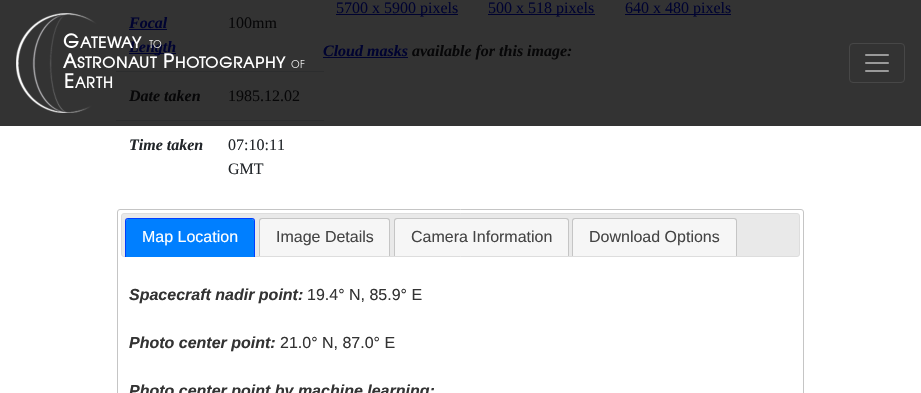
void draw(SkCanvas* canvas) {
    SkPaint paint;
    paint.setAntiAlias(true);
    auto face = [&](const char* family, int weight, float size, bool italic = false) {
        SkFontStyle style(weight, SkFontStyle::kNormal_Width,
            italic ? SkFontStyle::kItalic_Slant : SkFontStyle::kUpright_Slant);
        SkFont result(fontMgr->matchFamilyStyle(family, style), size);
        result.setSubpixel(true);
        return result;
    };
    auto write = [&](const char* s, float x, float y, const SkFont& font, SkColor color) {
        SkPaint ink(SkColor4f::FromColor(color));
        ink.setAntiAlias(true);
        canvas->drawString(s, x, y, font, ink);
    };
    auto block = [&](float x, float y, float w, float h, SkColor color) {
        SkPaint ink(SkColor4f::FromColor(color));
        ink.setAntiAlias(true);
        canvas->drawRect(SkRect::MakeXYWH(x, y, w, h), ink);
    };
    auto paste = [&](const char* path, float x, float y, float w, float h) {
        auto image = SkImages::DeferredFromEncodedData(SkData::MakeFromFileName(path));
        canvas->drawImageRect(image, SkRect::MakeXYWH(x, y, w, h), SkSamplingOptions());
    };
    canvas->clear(SK_ColorWHITE);
    block(0, 0, 921, 126, SkColorSetRGB(51, 51, 51));
    auto kFont1 = face("Liberation Serif", 700, 16, true);
    write("Focal", 129, 28, kFont1, SkColorSetRGB(0, 3, 48));
    block(129, 29, 38, 1, SkColorSetRGB(0, 3, 48));
    block(129, 53, 47, 1, SkColorSetRGB(0, 3, 48));
    write("Length", 129, 52, kFont1, SkColorSetRGB(0, 3, 48));
    auto kFont2 = face("Liberation Serif", 400, 16);
    write("100mm", 228, 28, kFont2, SkColorSetRGB(7, 7, 8));
    write("Date taken", 129, 101, kFont1, SkColorSetRGB(7, 7, 8));
    block(116, 71, 208, 1, SkColorSetRGB(44, 45, 46));
    write("1985.12.02", 228, 101, kFont2, SkColorSetRGB(7, 7, 8));
    write("Time taken", 129, 150, kFont1, SkColorSetRGB(33, 37, 41));
    block(116, 120, 208, 1, SkColorSetRGB(44, 45, 46));
    write("07:10:11", 228, 150, kFont2, SkColorSetRGB(33, 37, 41));
    write("GMT", 228, 174, kFont2, SkColorSetRGB(33, 37, 41));
    block(336, 14, 122, 1, SkColorSetRGB(0, 3, 48));
    write("5700 x 5900 pixels", 336, 13, kFont2, SkColorSetRGB(0, 3, 48));
    block(488, 14, 107, 1, SkColorSetRGB(0, 3, 48));
    write("500 x 518 pixels", 488, 13, kFont2, SkColorSetRGB(0, 3, 48));
    block(625, 14, 106, 1, SkColorSetRGB(0, 3, 48));
    write("640 x 480 pixels", 625, 13, kFont2, SkColorSetRGB(0, 3, 48));
    write("Cloud masks", 323, 56, kFont1, SkColorSetRGB(0, 3, 48));
    block(323, 57, 85, 1, SkColorSetRGB(0, 3, 48));
    write("available for this image:", 412, 56, kFont1, SkColorSetRGB(7, 7, 8));
    paint.setStyle(SkPaint::kStroke_Style);
    paint.setStrokeWidth(1);
    paint.setColor(SkColorSetRGB(197, 197, 197));
    canvas->drawRoundRect(SkRect::MakeXYWH(117.5f, 209.5f, 686, 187), 2.5f, 2.5f, paint);
    paint.setStyle(SkPaint::kFill_Style);
    paint.setColor(SkColorSetRGB(233, 233, 233));
    canvas->drawRoundRect(SkRect::MakeXYWH(121.5f, 213.5f, 678, 43), 2.5f, 2.5f, paint);
    paint.setStyle(SkPaint::kStroke_Style);
    paint.setColor(SkColorSetRGB(221, 221, 221));
    canvas->drawRoundRect(SkRect::MakeXYWH(121.5f, 213.5f, 678, 43), 2.5f, 2.5f, paint);
    paint.setStyle(SkPaint::kFill_Style);
    paint.setColor(SkColorSetRGB(0, 127, 255));
    canvas->drawPath(SkPathBuilder().moveTo(128, 219).lineTo(252, 219).cubicTo(253, 219, 254, 220, 254, 221).lineTo(254, 257).lineTo(126, 257).lineTo(126, 221).cubicTo(126, 220, 127, 219, 128, 219).close().detach(), paint);
    paint.setColor(SkColorSetRGB(0, 62, 255));
    canvas->drawPath(SkPathBuilder(SkPathFillType::kEvenOdd).moveTo(128, 218).lineTo(252, 218).cubicTo(254, 218, 255, 219, 255, 221).lineTo(255, 257).lineTo(125, 257).lineTo(125, 221).cubicTo(125, 219, 126, 218, 128, 218).close().moveTo(128, 219).lineTo(252, 219).cubicTo(253, 219, 254, 220, 254, 221).lineTo(254, 257).lineTo(126, 257).lineTo(126, 221).cubicTo(126, 220, 127, 219, 128, 219).close().detach(), paint);
    auto kFont3 = face("Liberation Sans", 400, 16);
    write("Map Location", 142, 242, kFont3, SK_ColorWHITE);
    paint.setColor(SkColorSetRGB(246, 246, 246));
    canvas->drawPath(SkPathBuilder().moveTo(262, 219).lineTo(387, 219).cubicTo(388, 219, 389, 220, 389, 221).lineTo(389, 256).lineTo(260, 256).lineTo(260, 221).cubicTo(260, 220, 261, 219, 262, 219).close().detach(), paint);
    paint.setColor(SkColorSetRGB(197, 197, 197));
    canvas->drawPath(SkPathBuilder(SkPathFillType::kEvenOdd).moveTo(262, 218).lineTo(387, 218).cubicTo(389, 218, 390, 219, 390, 221).lineTo(390, 256).lineTo(259, 256).lineTo(259, 221).cubicTo(259, 219, 260, 218, 262, 218).close().moveTo(262, 219).lineTo(387, 219).cubicTo(388, 219, 389, 220, 389, 221).lineTo(389, 256).lineTo(260, 256).lineTo(260, 221).cubicTo(260, 220, 261, 219, 262, 219).close().detach(), paint);
    write("Image Details", 276, 242, kFont3, SkColorSetRGB(69, 69, 69));
    paint.setColor(SkColorSetRGB(246, 246, 246));
    canvas->drawPath(SkPathBuilder().moveTo(397, 219).lineTo(566, 219).cubicTo(567, 219, 568, 220, 568, 221).lineTo(568, 256).lineTo(395, 256).lineTo(395, 221).cubicTo(395, 220, 396, 219, 397, 219).close().detach(), paint);
    paint.setColor(SkColorSetRGB(197, 197, 197));
    canvas->drawPath(SkPathBuilder(SkPathFillType::kEvenOdd).moveTo(397, 218).lineTo(566, 218).cubicTo(568, 218, 569, 219, 569, 221).lineTo(569, 256).lineTo(394, 256).lineTo(394, 221).cubicTo(394, 219, 395, 218, 397, 218).close().moveTo(397, 219).lineTo(566, 219).cubicTo(567, 219, 568, 220, 568, 221).lineTo(568, 256).lineTo(395, 256).lineTo(395, 221).cubicTo(395, 220, 396, 219, 397, 219).close().detach(), paint);
    write("Camera Information", 411, 242, kFont3, SkColorSetRGB(69, 69, 69));
    paint.setColor(SkColorSetRGB(246, 246, 246));
    canvas->drawPath(SkPathBuilder().moveTo(575, 219).lineTo(734, 219).cubicTo(735, 219, 736, 220, 736, 221).lineTo(736, 256).lineTo(573, 256).lineTo(573, 221).cubicTo(573, 220, 574, 219, 575, 219).close().detach(), paint);
    paint.setColor(SkColorSetRGB(197, 197, 197));
    canvas->drawPath(SkPathBuilder(SkPathFillType::kEvenOdd).moveTo(575, 218).lineTo(734, 218).cubicTo(736, 218, 737, 219, 737, 221).lineTo(737, 256).lineTo(572, 256).lineTo(572, 221).cubicTo(572, 219, 573, 218, 575, 218).close().moveTo(575, 219).lineTo(734, 219).cubicTo(735, 219, 736, 220, 736, 221).lineTo(736, 256).lineTo(573, 256).lineTo(573, 221).cubicTo(573, 220, 574, 219, 575, 219).close().detach(), paint);
    write("Download Options", 589, 242, kFont3, SkColorSetRGB(69, 69, 69));
    auto kFont4 = face("Liberation Sans", 700, 16, true);
    write("Spacecraft nadir point:", 129, 300, kFont4, SkColorSetRGB(51, 51, 51));
    write("19.4° N, 85.9° E", 307, 300, kFont3, SkColorSetRGB(51, 51, 51));
    write("Photo center point:", 129, 348, kFont4, SkColorSetRGB(51, 51, 51));
    write("21.0° N, 87.0° E", 280, 348, kFont3, SkColorSetRGB(51, 51, 51));
    write("Photo center point by machine learning:", 129, 396, kFont4, SkColorSetRGB(51, 51, 51));
    paste("pic1.png", 16, 13, 289, 100);
    paint.setStyle(SkPaint::kStroke_Style);
    paint.setColor(SkColorSetRGB(71, 71, 71));
    canvas->drawRoundRect(SkRect::MakeXYWH(849.5f, 43.5f, 55, 39), 3.5f, 3.5f, paint);
    paste("pic2.png", 865, 54, 24, 18);
}
